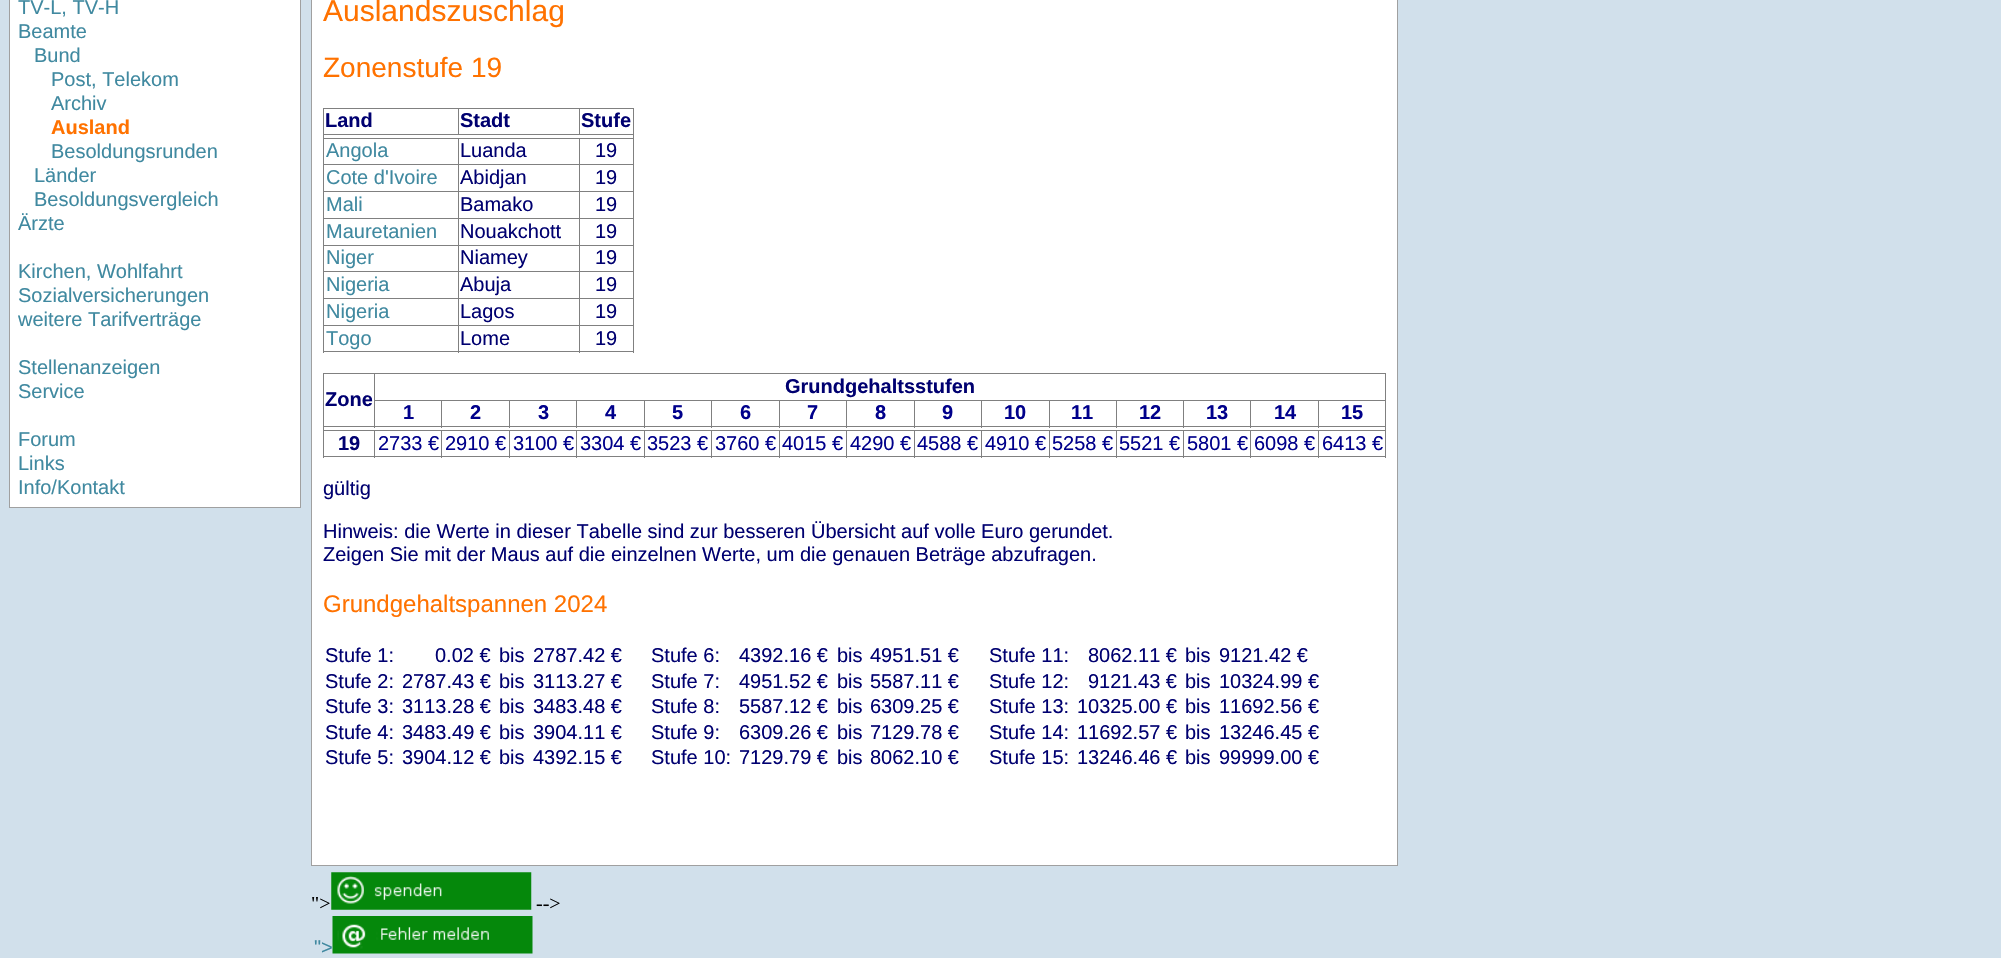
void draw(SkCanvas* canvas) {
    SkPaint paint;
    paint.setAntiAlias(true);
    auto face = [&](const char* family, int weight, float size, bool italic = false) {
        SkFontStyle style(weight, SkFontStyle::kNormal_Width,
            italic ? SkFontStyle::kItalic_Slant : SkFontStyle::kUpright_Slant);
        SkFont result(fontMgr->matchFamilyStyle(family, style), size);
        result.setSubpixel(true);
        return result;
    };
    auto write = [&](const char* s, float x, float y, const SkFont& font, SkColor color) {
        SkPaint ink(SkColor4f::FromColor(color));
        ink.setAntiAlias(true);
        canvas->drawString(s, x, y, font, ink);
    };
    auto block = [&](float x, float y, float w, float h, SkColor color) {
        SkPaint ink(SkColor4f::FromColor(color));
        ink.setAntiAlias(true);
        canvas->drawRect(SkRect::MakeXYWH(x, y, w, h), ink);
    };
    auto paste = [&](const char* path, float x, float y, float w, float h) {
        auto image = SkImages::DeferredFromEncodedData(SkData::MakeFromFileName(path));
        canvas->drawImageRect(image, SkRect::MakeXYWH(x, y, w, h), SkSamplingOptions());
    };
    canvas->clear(SkColorSetRGB(209, 224, 235));
    paint.setColor(SK_ColorWHITE);
    canvas->drawRect(SkRect::MakeXYWH(9.5f, -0.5f, 291, 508), paint);
    paint.setStyle(SkPaint::kStroke_Style);
    paint.setStrokeWidth(1);
    paint.setColor(SkColorSetRGB(160, 160, 160));
    canvas->drawRect(SkRect::MakeXYWH(9.5f, -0.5f, 291, 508), paint);
    auto kFont1 = face("Liberation Sans", 400, 20);
    write("TV-L, TV-H", 18, 14, kFont1, SkColorSetRGB(64, 137, 160));
    write("Beamte", 18, 38, kFont1, SkColorSetRGB(64, 137, 160));
    write("Bund", 34, 62, kFont1, SkColorSetRGB(64, 137, 160));
    write("Post, Telekom", 51, 86, kFont1, SkColorSetRGB(64, 137, 160));
    write("Archiv", 51, 110, kFont1, SkColorSetRGB(64, 137, 160));
    auto kFont2 = face("Liberation Sans", 700, 20);
    write("Ausland", 51, 134, kFont2, SkColorSetRGB(255, 114, 0));
    write("Besoldungsrunden", 51, 158, kFont1, SkColorSetRGB(64, 137, 160));
    write("Länder", 34, 182, kFont1, SkColorSetRGB(64, 137, 160));
    write("Besoldungsvergleich", 34, 206, kFont1, SkColorSetRGB(64, 137, 160));
    write("Ärzte", 18, 230, kFont1, SkColorSetRGB(64, 137, 160));
    write("Kirchen, Wohlfahrt", 18, 278, kFont1, SkColorSetRGB(64, 137, 160));
    write("Sozialversicherungen", 18, 302, kFont1, SkColorSetRGB(64, 137, 160));
    write("weitere Tarifverträge", 18, 326, kFont1, SkColorSetRGB(64, 137, 160));
    write("Stellenanzeigen", 18, 374, kFont1, SkColorSetRGB(64, 137, 160));
    write("Service", 18, 398, kFont1, SkColorSetRGB(64, 137, 160));
    write("Forum", 18, 446, kFont1, SkColorSetRGB(64, 137, 160));
    write("Links", 18, 470, kFont1, SkColorSetRGB(64, 137, 160));
    write("Info/Kontakt", 18, 494, kFont1, SkColorSetRGB(64, 137, 160));
    paint.setStyle(SkPaint::kFill_Style);
    paint.setColor(SK_ColorWHITE);
    canvas->drawRect(SkRect::MakeXYWH(311.5f, -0.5f, 1086, 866), paint);
    paint.setStyle(SkPaint::kStroke_Style);
    paint.setColor(SkColorSetRGB(160, 160, 160));
    canvas->drawRect(SkRect::MakeXYWH(311.5f, -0.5f, 1086, 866), paint);
    auto kFont3 = face("Liberation Sans", 400, 30);
    write("Auslandszuschlag", 323, 21, kFont3, SkColorSetRGB(255, 114, 0));
    auto kFont4 = face("Liberation Sans", 400, 28);
    write("Zonenstufe 19", 323, 77, kFont4, SkColorSetRGB(255, 114, 0));
    block(323, 108, 311, 1, SkColorSetRGB(128, 128, 128));
    block(633, 108, 1, 245, SkColorSetRGB(128, 128, 128));
    block(323, 351, 311, 1, SkColorSetRGB(128, 128, 128));
    block(323, 108, 1, 245, SkColorSetRGB(128, 128, 128));
    write("Land", 325, 127, kFont2, SkColorSetRGB(0, 0, 112));
    block(323, 134, 311, 1, SkColorSetRGB(128, 128, 128));
    block(458, 108, 1, 27, SkColorSetRGB(128, 128, 128));
    write("Stadt", 460, 127, kFont2, SkColorSetRGB(0, 0, 112));
    block(579, 108, 1, 27, SkColorSetRGB(128, 128, 128));
    write("Stufe", 581, 127, kFont2, SkColorSetRGB(0, 0, 112));
    block(579, 138, 55, 1, SkColorSetRGB(128, 128, 128));
    block(579, 164, 55, 1, SkColorSetRGB(128, 128, 128));
    block(579, 191, 55, 1, SkColorSetRGB(128, 128, 128));
    block(579, 218, 55, 1, SkColorSetRGB(128, 128, 128));
    block(579, 245, 55, 1, SkColorSetRGB(128, 128, 128));
    block(579, 271, 55, 1, SkColorSetRGB(128, 128, 128));
    block(579, 298, 55, 1, SkColorSetRGB(128, 128, 128));
    block(579, 325, 55, 1, SkColorSetRGB(128, 128, 128));
    block(579, 325, 1, 28, SkColorSetRGB(128, 128, 128));
    block(458, 325, 122, 1, SkColorSetRGB(128, 128, 128));
    block(579, 298, 1, 28, SkColorSetRGB(128, 128, 128));
    block(458, 298, 122, 1, SkColorSetRGB(128, 128, 128));
    block(579, 271, 1, 28, SkColorSetRGB(128, 128, 128));
    block(458, 271, 122, 1, SkColorSetRGB(128, 128, 128));
    block(579, 245, 1, 28, SkColorSetRGB(128, 128, 128));
    block(458, 245, 122, 1, SkColorSetRGB(128, 128, 128));
    block(579, 218, 1, 28, SkColorSetRGB(128, 128, 128));
    block(458, 218, 122, 1, SkColorSetRGB(128, 128, 128));
    block(579, 191, 1, 28, SkColorSetRGB(128, 128, 128));
    block(458, 191, 122, 1, SkColorSetRGB(128, 128, 128));
    block(579, 164, 1, 29, SkColorSetRGB(128, 128, 128));
    block(458, 164, 122, 1, SkColorSetRGB(128, 128, 128));
    block(579, 138, 1, 27, SkColorSetRGB(128, 128, 128));
    block(458, 138, 122, 1, SkColorSetRGB(128, 128, 128));
    block(458, 325, 1, 28, SkColorSetRGB(128, 128, 128));
    block(323, 325, 136, 1, SkColorSetRGB(128, 128, 128));
    block(458, 298, 1, 28, SkColorSetRGB(128, 128, 128));
    block(323, 298, 136, 1, SkColorSetRGB(128, 128, 128));
    block(458, 271, 1, 28, SkColorSetRGB(128, 128, 128));
    block(323, 271, 136, 1, SkColorSetRGB(128, 128, 128));
    block(458, 245, 1, 28, SkColorSetRGB(128, 128, 128));
    block(323, 245, 136, 1, SkColorSetRGB(128, 128, 128));
    block(458, 218, 1, 28, SkColorSetRGB(128, 128, 128));
    block(323, 218, 136, 1, SkColorSetRGB(128, 128, 128));
    block(458, 191, 1, 28, SkColorSetRGB(128, 128, 128));
    block(323, 191, 136, 1, SkColorSetRGB(128, 128, 128));
    block(458, 164, 1, 29, SkColorSetRGB(128, 128, 128));
    block(323, 164, 136, 1, SkColorSetRGB(128, 128, 128));
    block(458, 138, 1, 27, SkColorSetRGB(128, 128, 128));
    block(323, 138, 136, 1, SkColorSetRGB(128, 128, 128));
    write("Angola", 326, 157, kFont1, SkColorSetRGB(64, 137, 160));
    write("Luanda", 460, 157, kFont1, SkColorSetRGB(0, 0, 112));
    write("19", 595, 157, kFont1, SkColorSetRGB(0, 0, 112));
    write("Cote d'Ivoire", 326, 184, kFont1, SkColorSetRGB(64, 137, 160));
    write("Abidjan", 460, 184, kFont1, SkColorSetRGB(0, 0, 112));
    write("19", 595, 184, kFont1, SkColorSetRGB(0, 0, 112));
    write("Mali", 326, 211, kFont1, SkColorSetRGB(64, 137, 160));
    write("Bamako", 460, 211, kFont1, SkColorSetRGB(0, 0, 112));
    write("19", 595, 211, kFont1, SkColorSetRGB(0, 0, 112));
    write("Mauretanien", 326, 238, kFont1, SkColorSetRGB(64, 137, 160));
    write("Nouakchott", 460, 238, kFont1, SkColorSetRGB(0, 0, 112));
    write("19", 595, 238, kFont1, SkColorSetRGB(0, 0, 112));
    write("Niger", 326, 264, kFont1, SkColorSetRGB(64, 137, 160));
    write("Niamey", 460, 264, kFont1, SkColorSetRGB(0, 0, 112));
    write("19", 595, 264, kFont1, SkColorSetRGB(0, 0, 112));
    write("Nigeria", 326, 291, kFont1, SkColorSetRGB(64, 137, 160));
    write("Abuja", 460, 291, kFont1, SkColorSetRGB(0, 0, 112));
    write("19", 595, 291, kFont1, SkColorSetRGB(0, 0, 112));
    write("Nigeria", 326, 318, kFont1, SkColorSetRGB(64, 137, 160));
    write("Lagos", 460, 318, kFont1, SkColorSetRGB(0, 0, 112));
    write("19", 595, 318, kFont1, SkColorSetRGB(0, 0, 112));
    write("Togo", 326, 345, kFont1, SkColorSetRGB(64, 137, 160));
    write("Lome", 460, 345, kFont1, SkColorSetRGB(0, 0, 112));
    write("19", 595, 345, kFont1, SkColorSetRGB(0, 0, 112));
    block(323, 373, 1063, 1, SkColorSetRGB(128, 128, 128));
    block(1385, 373, 1, 85, SkColorSetRGB(128, 128, 128));
    block(323, 456, 1063, 1, SkColorSetRGB(128, 128, 128));
    block(323, 373, 1, 85, SkColorSetRGB(128, 128, 128));
    write("Grundgehaltsstufen", 785, 393, kFont2, SkColorSetRGB(0, 0, 112));
    write("Zone", 325, 406, kFont2, SkColorSetRGB(0, 0, 112));
    block(1318, 400, 68, 1, SkColorSetRGB(128, 128, 128));
    block(323, 426, 1063, 1, SkColorSetRGB(128, 128, 128));
    block(1318, 400, 1, 28, SkColorSetRGB(128, 128, 128));
    block(1250, 400, 69, 1, SkColorSetRGB(128, 128, 128));
    block(1250, 400, 1, 28, SkColorSetRGB(128, 128, 128));
    block(1183, 400, 68, 1, SkColorSetRGB(128, 128, 128));
    block(1183, 400, 1, 28, SkColorSetRGB(128, 128, 128));
    block(1116, 400, 68, 1, SkColorSetRGB(128, 128, 128));
    block(1116, 400, 1, 28, SkColorSetRGB(128, 128, 128));
    block(1049, 400, 69, 1, SkColorSetRGB(128, 128, 128));
    block(1049, 400, 1, 28, SkColorSetRGB(128, 128, 128));
    block(981, 400, 69, 1, SkColorSetRGB(128, 128, 128));
    block(981, 400, 1, 28, SkColorSetRGB(128, 128, 128));
    block(914, 400, 69, 1, SkColorSetRGB(128, 128, 128));
    block(914, 400, 1, 28, SkColorSetRGB(128, 128, 128));
    block(846, 400, 69, 1, SkColorSetRGB(128, 128, 128));
    block(846, 400, 1, 28, SkColorSetRGB(128, 128, 128));
    block(779, 400, 69, 1, SkColorSetRGB(128, 128, 128));
    block(779, 400, 1, 28, SkColorSetRGB(128, 128, 128));
    block(711, 400, 69, 1, SkColorSetRGB(128, 128, 128));
    block(711, 400, 1, 28, SkColorSetRGB(128, 128, 128));
    block(644, 400, 69, 1, SkColorSetRGB(128, 128, 128));
    block(644, 400, 1, 28, SkColorSetRGB(128, 128, 128));
    block(576, 400, 69, 1, SkColorSetRGB(128, 128, 128));
    block(576, 400, 1, 28, SkColorSetRGB(128, 128, 128));
    block(509, 400, 69, 1, SkColorSetRGB(128, 128, 128));
    block(509, 400, 1, 28, SkColorSetRGB(128, 128, 128));
    block(441, 400, 69, 1, SkColorSetRGB(128, 128, 128));
    block(441, 400, 1, 28, SkColorSetRGB(128, 128, 128));
    block(374, 400, 69, 1, SkColorSetRGB(128, 128, 128));
    block(374, 373, 1, 55, SkColorSetRGB(128, 128, 128));
    write("1", 403, 419, kFont2, SkColorSetRGB(0, 0, 139));
    write("2", 470, 419, kFont2, SkColorSetRGB(0, 0, 139));
    write("3", 538, 419, kFont2, SkColorSetRGB(0, 0, 139));
    write("4", 605, 419, kFont2, SkColorSetRGB(0, 0, 139));
    write("5", 672, 419, kFont2, SkColorSetRGB(0, 0, 139));
    write("6", 740, 419, kFont2, SkColorSetRGB(0, 0, 139));
    write("7", 807, 419, kFont2, SkColorSetRGB(0, 0, 139));
    write("8", 875, 419, kFont2, SkColorSetRGB(0, 0, 139));
    write("9", 942, 419, kFont2, SkColorSetRGB(0, 0, 139));
    write("10", 1004, 419, kFont2, SkColorSetRGB(0, 0, 139));
    write("11", 1071, 419, kFont2, SkColorSetRGB(0, 0, 139));
    write("12", 1139, 419, kFont2, SkColorSetRGB(0, 0, 139));
    write("13", 1206, 419, kFont2, SkColorSetRGB(0, 0, 139));
    write("14", 1274, 419, kFont2, SkColorSetRGB(0, 0, 139));
    write("15", 1341, 419, kFont2, SkColorSetRGB(0, 0, 139));
    block(1318, 430, 68, 1, SkColorSetRGB(128, 128, 128));
    block(1318, 430, 1, 28, SkColorSetRGB(128, 128, 128));
    block(1250, 430, 69, 1, SkColorSetRGB(128, 128, 128));
    block(1250, 430, 1, 28, SkColorSetRGB(128, 128, 128));
    block(1183, 430, 68, 1, SkColorSetRGB(128, 128, 128));
    block(1183, 430, 1, 28, SkColorSetRGB(128, 128, 128));
    block(1116, 430, 68, 1, SkColorSetRGB(128, 128, 128));
    block(1116, 430, 1, 28, SkColorSetRGB(128, 128, 128));
    block(1049, 430, 69, 1, SkColorSetRGB(128, 128, 128));
    block(1049, 430, 1, 28, SkColorSetRGB(128, 128, 128));
    block(981, 430, 69, 1, SkColorSetRGB(128, 128, 128));
    block(981, 430, 1, 28, SkColorSetRGB(128, 128, 128));
    block(914, 430, 69, 1, SkColorSetRGB(128, 128, 128));
    block(914, 430, 1, 28, SkColorSetRGB(128, 128, 128));
    block(846, 430, 69, 1, SkColorSetRGB(128, 128, 128));
    block(846, 430, 1, 28, SkColorSetRGB(128, 128, 128));
    block(779, 430, 69, 1, SkColorSetRGB(128, 128, 128));
    block(779, 430, 1, 28, SkColorSetRGB(128, 128, 128));
    block(711, 430, 69, 1, SkColorSetRGB(128, 128, 128));
    block(711, 430, 1, 28, SkColorSetRGB(128, 128, 128));
    block(644, 430, 69, 1, SkColorSetRGB(128, 128, 128));
    block(644, 430, 1, 28, SkColorSetRGB(128, 128, 128));
    block(576, 430, 69, 1, SkColorSetRGB(128, 128, 128));
    block(576, 430, 1, 28, SkColorSetRGB(128, 128, 128));
    block(509, 430, 69, 1, SkColorSetRGB(128, 128, 128));
    block(509, 430, 1, 28, SkColorSetRGB(128, 128, 128));
    block(441, 430, 69, 1, SkColorSetRGB(128, 128, 128));
    block(441, 430, 1, 28, SkColorSetRGB(128, 128, 128));
    block(374, 430, 69, 1, SkColorSetRGB(128, 128, 128));
    block(374, 430, 1, 28, SkColorSetRGB(128, 128, 128));
    block(323, 430, 52, 1, SkColorSetRGB(128, 128, 128));
    write("19", 338, 450, kFont2, SkColorSetRGB(0, 0, 112));
    write("2733 €", 378, 450, kFont1, SkColorSetRGB(0, 0, 139));
    write("2910 €", 445, 450, kFont1, SkColorSetRGB(0, 0, 139));
    write("3100 €", 513, 450, kFont1, SkColorSetRGB(0, 0, 139));
    write("3304 €", 580, 450, kFont1, SkColorSetRGB(0, 0, 139));
    write("3523 €", 647, 450, kFont1, SkColorSetRGB(0, 0, 139));
    write("3760 €", 715, 450, kFont1, SkColorSetRGB(0, 0, 139));
    write("4015 €", 782, 450, kFont1, SkColorSetRGB(0, 0, 139));
    write("4290 €", 850, 450, kFont1, SkColorSetRGB(0, 0, 139));
    write("4588 €", 917, 450, kFont1, SkColorSetRGB(0, 0, 139));
    write("4910 €", 985, 450, kFont1, SkColorSetRGB(0, 0, 139));
    write("5258 €", 1052, 450, kFont1, SkColorSetRGB(0, 0, 139));
    write("5521 €", 1119, 450, kFont1, SkColorSetRGB(0, 0, 139));
    write("5801 €", 1187, 450, kFont1, SkColorSetRGB(0, 0, 139));
    write("6098 €", 1254, 450, kFont1, SkColorSetRGB(0, 0, 139));
    write("6413 €", 1322, 450, kFont1, SkColorSetRGB(0, 0, 139));
    write("gültig", 323, 495, kFont1, SkColorSetRGB(0, 0, 112));
    write("Hinweis: die Werte in dieser Tabelle sind zur besseren Übersicht auf volle Euro gerundet.", 323, 538, kFont1, SkColorSetRGB(0, 0, 112));
    write("Zeigen Sie mit der Maus auf die einzelnen Werte, um die genauen Beträge abzufragen.", 323, 561, kFont1, SkColorSetRGB(0, 0, 112));
    auto kFont5 = face("Liberation Sans", 400, 24);
    write("Grundgehaltspannen 2024", 323, 612, kFont5, SkColorSetRGB(255, 114, 0));
    write("Stufe 1:", 325, 662, kFont1, SkColorSetRGB(0, 0, 112));
    write("0.02 €", 435, 662, kFont1, SkColorSetRGB(0, 0, 112));
    write("bis", 499, 662, kFont1, SkColorSetRGB(0, 0, 112));
    write("2787.42 €", 533, 662, kFont1, SkColorSetRGB(0, 0, 112));
    write("Stufe 2:", 325, 688, kFont1, SkColorSetRGB(0, 0, 112));
    write("2787.43 €", 402, 688, kFont1, SkColorSetRGB(0, 0, 112));
    write("bis", 499, 688, kFont1, SkColorSetRGB(0, 0, 112));
    write("3113.27 €", 533, 688, kFont1, SkColorSetRGB(0, 0, 112));
    write("Stufe 3:", 325, 713, kFont1, SkColorSetRGB(0, 0, 112));
    write("3113.28 €", 402, 713, kFont1, SkColorSetRGB(0, 0, 112));
    write("bis", 499, 713, kFont1, SkColorSetRGB(0, 0, 112));
    write("3483.48 €", 533, 713, kFont1, SkColorSetRGB(0, 0, 112));
    write("Stufe 4:", 325, 739, kFont1, SkColorSetRGB(0, 0, 112));
    write("3483.49 €", 402, 739, kFont1, SkColorSetRGB(0, 0, 112));
    write("bis", 499, 739, kFont1, SkColorSetRGB(0, 0, 112));
    write("3904.11 €", 533, 739, kFont1, SkColorSetRGB(0, 0, 112));
    write("Stufe 5:", 325, 764, kFont1, SkColorSetRGB(0, 0, 112));
    write("3904.12 €", 402, 764, kFont1, SkColorSetRGB(0, 0, 112));
    write("bis", 499, 764, kFont1, SkColorSetRGB(0, 0, 112));
    write("4392.15 €", 533, 764, kFont1, SkColorSetRGB(0, 0, 112));
    write("Stufe 6:", 651, 662, kFont1, SkColorSetRGB(0, 0, 112));
    write("4392.16 €", 739, 662, kFont1, SkColorSetRGB(0, 0, 112));
    write("bis", 837, 662, kFont1, SkColorSetRGB(0, 0, 112));
    write("4951.51 €", 870, 662, kFont1, SkColorSetRGB(0, 0, 112));
    write("Stufe 7:", 651, 688, kFont1, SkColorSetRGB(0, 0, 112));
    write("4951.52 €", 739, 688, kFont1, SkColorSetRGB(0, 0, 112));
    write("bis", 837, 688, kFont1, SkColorSetRGB(0, 0, 112));
    write("5587.11 €", 870, 688, kFont1, SkColorSetRGB(0, 0, 112));
    write("Stufe 8:", 651, 713, kFont1, SkColorSetRGB(0, 0, 112));
    write("5587.12 €", 739, 713, kFont1, SkColorSetRGB(0, 0, 112));
    write("bis", 837, 713, kFont1, SkColorSetRGB(0, 0, 112));
    write("6309.25 €", 870, 713, kFont1, SkColorSetRGB(0, 0, 112));
    write("Stufe 9:", 651, 739, kFont1, SkColorSetRGB(0, 0, 112));
    write("6309.26 €", 739, 739, kFont1, SkColorSetRGB(0, 0, 112));
    write("bis", 837, 739, kFont1, SkColorSetRGB(0, 0, 112));
    write("7129.78 €", 870, 739, kFont1, SkColorSetRGB(0, 0, 112));
    write("Stufe 10:", 651, 764, kFont1, SkColorSetRGB(0, 0, 112));
    write("7129.79 €", 739, 764, kFont1, SkColorSetRGB(0, 0, 112));
    write("bis", 837, 764, kFont1, SkColorSetRGB(0, 0, 112));
    write("8062.10 €", 870, 764, kFont1, SkColorSetRGB(0, 0, 112));
    write("Stufe 11:", 989, 662, kFont1, SkColorSetRGB(0, 0, 112));
    write("8062.11 €", 1088, 662, kFont1, SkColorSetRGB(0, 0, 112));
    write("bis", 1185, 662, kFont1, SkColorSetRGB(0, 0, 112));
    write("9121.42 €", 1219, 662, kFont1, SkColorSetRGB(0, 0, 112));
    write("Stufe 12:", 989, 688, kFont1, SkColorSetRGB(0, 0, 112));
    write("9121.43 €", 1088, 688, kFont1, SkColorSetRGB(0, 0, 112));
    write("bis", 1185, 688, kFont1, SkColorSetRGB(0, 0, 112));
    write("10324.99 €", 1219, 688, kFont1, SkColorSetRGB(0, 0, 112));
    write("Stufe 13:", 989, 713, kFont1, SkColorSetRGB(0, 0, 112));
    write("10325.00 €", 1077, 713, kFont1, SkColorSetRGB(0, 0, 112));
    write("bis", 1185, 713, kFont1, SkColorSetRGB(0, 0, 112));
    write("11692.56 €", 1219, 713, kFont1, SkColorSetRGB(0, 0, 112));
    write("Stufe 14:", 989, 739, kFont1, SkColorSetRGB(0, 0, 112));
    write("11692.57 €", 1077, 739, kFont1, SkColorSetRGB(0, 0, 112));
    write("bis", 1185, 739, kFont1, SkColorSetRGB(0, 0, 112));
    write("13246.45 €", 1219, 739, kFont1, SkColorSetRGB(0, 0, 112));
    write("Stufe 15:", 989, 764, kFont1, SkColorSetRGB(0, 0, 112));
    write("13246.46 €", 1077, 764, kFont1, SkColorSetRGB(0, 0, 112));
    write("bis", 1185, 764, kFont1, SkColorSetRGB(0, 0, 112));
    write("99999.00 €", 1219, 764, kFont1, SkColorSetRGB(0, 0, 112));
    auto kFont6 = face("Liberation Serif", 400, 20);
    write("\">", 311, 910, kFont6, SK_ColorBLACK);
    paste("pic1.png", 331, 872, 201, 38);
    write("-->", 536, 910, kFont6, SK_ColorBLACK);
    write("\">", 314, 954, kFont1, SkColorSetRGB(64, 137, 160));
    paste("pic2.png", 332, 916, 201, 38);
}
